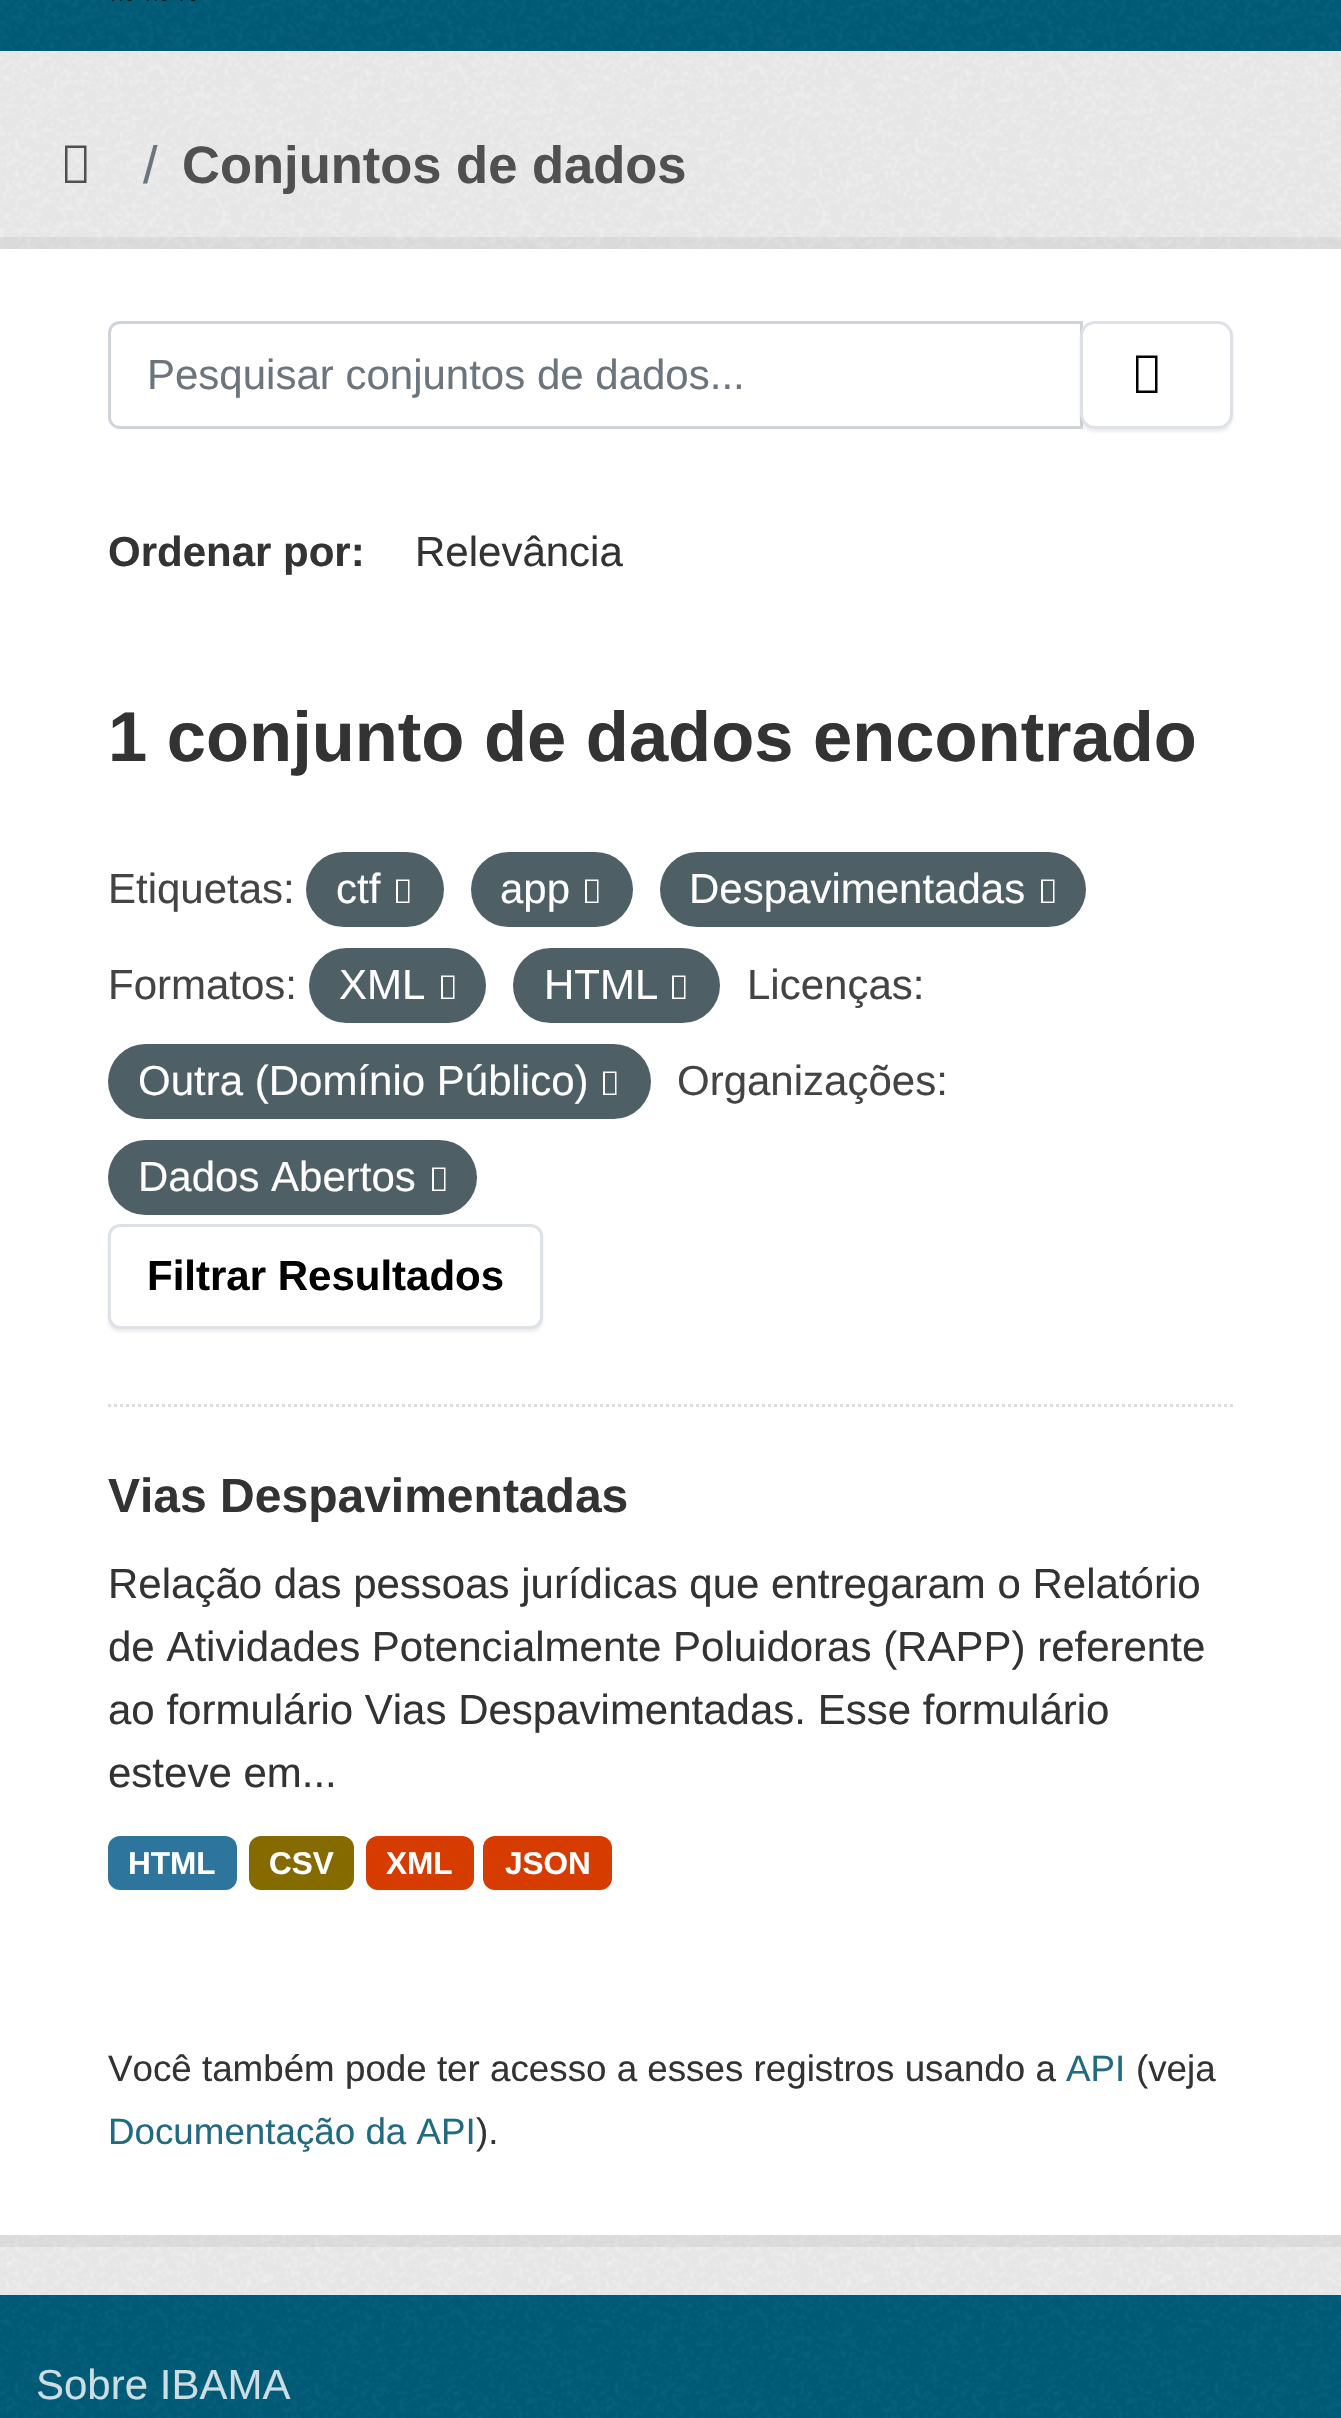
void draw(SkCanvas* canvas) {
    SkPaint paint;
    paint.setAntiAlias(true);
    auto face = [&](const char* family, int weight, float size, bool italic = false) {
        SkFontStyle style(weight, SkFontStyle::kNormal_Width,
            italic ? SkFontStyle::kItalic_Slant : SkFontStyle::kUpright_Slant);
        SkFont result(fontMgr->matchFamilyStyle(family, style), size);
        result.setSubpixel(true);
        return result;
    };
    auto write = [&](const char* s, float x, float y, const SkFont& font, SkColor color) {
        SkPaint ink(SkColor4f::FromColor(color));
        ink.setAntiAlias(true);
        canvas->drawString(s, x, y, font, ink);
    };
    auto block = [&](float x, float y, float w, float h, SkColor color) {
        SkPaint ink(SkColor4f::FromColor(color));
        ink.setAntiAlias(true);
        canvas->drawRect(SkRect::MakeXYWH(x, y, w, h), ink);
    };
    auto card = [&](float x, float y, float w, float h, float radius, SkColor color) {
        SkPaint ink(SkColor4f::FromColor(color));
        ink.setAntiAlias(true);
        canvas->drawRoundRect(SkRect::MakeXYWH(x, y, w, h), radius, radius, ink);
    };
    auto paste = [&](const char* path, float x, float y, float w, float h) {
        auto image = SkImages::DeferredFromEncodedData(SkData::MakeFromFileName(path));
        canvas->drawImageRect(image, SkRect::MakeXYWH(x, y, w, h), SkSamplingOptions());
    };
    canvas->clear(SkColorSetRGB(0, 93, 122));
    paste("pic1.png", 0, 0, 1341, 51);
    paste("pic2.png", 112, 0, 84, 2);
    block(0, 51, 1341, 2244, SkColorSetRGB(238, 238, 238));
    paste("pic3.png", 0, 51, 1341, 2244);
    paint.setColor(SkColorSetRGB(80, 80, 80));
    canvas->drawPath(SkPathBuilder().moveTo(65, 183).lineTo(65, 145.5f).lineTo(86.5f, 145.5f).lineTo(86.5f, 183).close().moveTo(67.5f, 180.5f).lineTo(84, 180.5f).lineTo(84, 148).lineTo(67.5f, 148).close().detach(), paint);
    auto kFont1 = face("Liberation Sans", 400, 52.5f);
    write("/", 143, 183, kFont1, SkColorSetRGB(108, 117, 125));
    auto kFont2 = face("Liberation Sans", 700, 52.5f);
    write("Conjuntos de dados", 182, 183, kFont2, SkColorSetRGB(80, 80, 80));
    paint.setStyle(SkPaint::kStroke_Style);
    paint.setStrokeWidth(12);
    paint.setColor(SkColorSetARGB(13, 0, 0, 0));
    canvas->drawRect(SkRect::MakeXYWH(-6, 243, 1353, 1998), paint);
    block(0, 249, 1341, 1986, SK_ColorWHITE);
    paint.setStrokeWidth(3);
    paint.setColor(SkColorSetRGB(221, 221, 221));
    paint.setPathEffect(SkDashPathEffect::Make({{3, 3}}, 0));
    canvas->drawPath(SkPathBuilder().moveTo(108, 1405.5f).lineTo(1233, 1405.5f).detach(), paint);
    paint.setPathEffect(nullptr);
    paint.setColor(SkColorSetRGB(206, 212, 218));
    canvas->drawPath(SkPathBuilder().moveTo(120, 322.5f).lineTo(1081.5f, 322.5f).lineTo(1081.5f, 427.5f).lineTo(120, 427.5f).cubicTo(114, 427.5f, 109.5f, 423, 109.5f, 417).lineTo(109.5f, 333).cubicTo(109.5f, 327, 114, 322.5f, 120, 322.5f).close().detach(), paint);
    auto kFont3 = face("Liberation Sans", 400, 42);
    write("Pesquisar conjuntos de dados...", 147, 389, kFont3, SkColorSetRGB(108, 117, 125));
    paint.setStyle(SkPaint::kFill_Style);
    paint.setColor(SkColorSetARGB(18, 0, 0, 0));
    paint.setMaskFilter(SkMaskFilter::MakeBlur(kNormal_SkBlurStyle, 1.5f));
    canvas->drawRoundRect(SkRect::MakeXYWH(1080, 324, 153, 108), 15, 15, paint);
    paint.setMaskFilter(nullptr);
    paint.setColor(SK_ColorWHITE);
    canvas->drawRoundRect(SkRect::MakeXYWH(1081.5f, 322.5f, 150, 105), 13.5f, 13.5f, paint);
    paint.setStyle(SkPaint::kStroke_Style);
    paint.setColor(SkColorSetRGB(222, 226, 230));
    canvas->drawRoundRect(SkRect::MakeXYWH(1081.5f, 322.5f, 150, 105), 13.5f, 13.5f, paint);
    paint.setStyle(SkPaint::kFill_Style);
    paint.setColor(SK_ColorBLACK);
    canvas->drawPath(SkPathBuilder().moveTo(1136, 393).lineTo(1136, 355.5f).lineTo(1157.5f, 355.5f).lineTo(1157.5f, 393).close().moveTo(1138.5f, 390.5f).lineTo(1155, 390.5f).lineTo(1155, 358).lineTo(1138.5f, 358).close().detach(), paint);
    auto kFont4 = face("Liberation Sans", 700, 42);
    write("Ordenar por:", 108, 566, kFont4, SkColorSetRGB(51, 51, 51));
    write("Relevância", 415, 566, kFont3, SkColorSetRGB(51, 51, 51));
    auto kFont5 = face("Liberation Sans", 700, 70.5f);
    write("1 conjunto de dados encontrado", 108, 761, kFont5, SkColorSetRGB(51, 51, 51));
    write("Etiquetas:", 108, 903, kFont3, SkColorSetRGB(68, 68, 68));
    card(306, 852, 138, 75, 37.5f, SkColorSetRGB(78, 95, 101));
    write("ctf", 336, 903, kFont3, SK_ColorWHITE);
    paint.setColor(SK_ColorWHITE);
    canvas->drawPath(SkPathBuilder().moveTo(396, 903).lineTo(396, 879.5f).lineTo(409.5f, 879.5f).lineTo(409.5f, 903).close().moveTo(398, 901.5f).lineTo(408, 901.5f).lineTo(408, 881).lineTo(398, 881).close().detach(), paint);
    card(471, 852, 162, 75, 37.5f, SkColorSetRGB(78, 95, 101));
    write("app", 500, 903, kFont3, SK_ColorWHITE);
    canvas->drawPath(SkPathBuilder().moveTo(585, 903).lineTo(585, 879.5f).lineTo(598.5f, 879.5f).lineTo(598.5f, 903).close().moveTo(587, 901.5f).lineTo(597, 901.5f).lineTo(597, 881).lineTo(587, 881).close().detach(), paint);
    card(660, 852, 426, 75, 37.5f, SkColorSetRGB(78, 95, 101));
    write("Despavimentadas", 689, 903, kFont3, SK_ColorWHITE);
    canvas->drawPath(SkPathBuilder().moveTo(1041, 903).lineTo(1041, 879.5f).lineTo(1054.5f, 879.5f).lineTo(1054.5f, 903).close().moveTo(1043, 901.5f).lineTo(1053, 901.5f).lineTo(1053, 881).lineTo(1043, 881).close().detach(), paint);
    write("Formatos:", 108, 999, kFont3, SkColorSetRGB(68, 68, 68));
    card(309, 948, 177, 75, 37.5f, SkColorSetRGB(78, 95, 101));
    write("XML", 339, 999, kFont3, SK_ColorWHITE);
    canvas->drawPath(SkPathBuilder().moveTo(441, 999).lineTo(441, 975.5f).lineTo(454.5f, 975.5f).lineTo(454.5f, 999).close().moveTo(443, 997.5f).lineTo(453, 997.5f).lineTo(453, 977).lineTo(443, 977).close().detach(), paint);
    card(513, 948, 207, 75, 37.5f, SkColorSetRGB(78, 95, 101));
    write("HTML", 544, 999, kFont3, SK_ColorWHITE);
    canvas->drawPath(SkPathBuilder().moveTo(672, 999).lineTo(672, 975.5f).lineTo(685.5f, 975.5f).lineTo(685.5f, 999).close().moveTo(674, 997.5f).lineTo(684, 997.5f).lineTo(684, 977).lineTo(674, 977).close().detach(), paint);
    write("Licenças:", 747, 999, kFont3, SkColorSetRGB(68, 68, 68));
    card(108, 1044, 543, 75, 37.5f, SkColorSetRGB(78, 95, 101));
    write("Outra (Domínio Público)", 138, 1095, kFont3, SK_ColorWHITE);
    canvas->drawPath(SkPathBuilder().moveTo(603, 1095).lineTo(603, 1071.5f).lineTo(616.5f, 1071.5f).lineTo(616.5f, 1095).close().moveTo(605, 1093.5f).lineTo(615, 1093.5f).lineTo(615, 1073).lineTo(605, 1073).close().detach(), paint);
    write("Organizações:", 677, 1095, kFont3, SkColorSetRGB(68, 68, 68));
    card(108, 1140, 369, 75, 37.5f, SkColorSetRGB(78, 95, 101));
    write("Dados Abertos", 138, 1191, kFont3, SK_ColorWHITE);
    canvas->drawPath(SkPathBuilder().moveTo(432, 1191).lineTo(432, 1167.5f).lineTo(445.5f, 1167.5f).lineTo(445.5f, 1191).close().moveTo(434, 1189.5f).lineTo(444, 1189.5f).lineTo(444, 1169).lineTo(434, 1169).close().detach(), paint);
    paint.setColor(SkColorSetARGB(18, 0, 0, 0));
    paint.setMaskFilter(SkMaskFilter::MakeBlur(kNormal_SkBlurStyle, 1.5f));
    canvas->drawRoundRect(SkRect::MakeXYWH(108, 1227, 435, 105), 12, 12, paint);
    paint.setMaskFilter(nullptr);
    paint.setColor(SK_ColorWHITE);
    canvas->drawRoundRect(SkRect::MakeXYWH(109.5f, 1225.5f, 432, 102), 10.5f, 10.5f, paint);
    paint.setStyle(SkPaint::kStroke_Style);
    paint.setColor(SkColorSetRGB(222, 226, 230));
    canvas->drawRoundRect(SkRect::MakeXYWH(109.5f, 1225.5f, 432, 102), 10.5f, 10.5f, paint);
    write("Filtrar Resultados", 147, 1290, kFont4, SK_ColorBLACK);
    auto kFont6 = face("Liberation Sans", 700, 48);
    write("Vias Despavimentadas", 108, 1512, kFont6, SkColorSetRGB(51, 51, 51));
    write("Relação das pessoas jurídicas que entregaram o Relatório", 108, 1598, kFont3, SkColorSetRGB(51, 51, 51));
    write("de Atividades Potencialmente Poluidoras (RAPP) referente", 108, 1661, kFont3, SkColorSetRGB(51, 51, 51));
    write("ao formulário Vias Despavimentadas. Esse formulário", 108, 1724, kFont3, SkColorSetRGB(51, 51, 51));
    write("esteve em...", 108, 1787, kFont3, SkColorSetRGB(51, 51, 51));
    card(108, 1836, 129, 54, 12, SkColorSetRGB(46, 117, 158));
    auto kFont7 = face("Liberation Sans", 700, 31.5f);
    write("HTML", 128, 1874, kFont7, SK_ColorWHITE);
    card(249, 1836, 105, 54, 12, SkColorSetRGB(133, 106, 0));
    write("CSV", 269, 1874, kFont7, SK_ColorWHITE);
    card(366, 1836, 108, 54, 12, SkColorSetRGB(214, 59, 0));
    write("XML", 386, 1874, kFont7, SK_ColorWHITE);
    card(483, 1836, 129, 54, 12, SkColorSetRGB(214, 59, 0));
    write("JSON", 505, 1874, kFont7, SK_ColorWHITE);
    auto kFont8 = face("Liberation Sans", 400, 36.75f);
    write("Você também pode ter acesso a esses registros usando a", 108, 2081, kFont8, SkColorSetRGB(51, 51, 51));
    write("API", 1066, 2081, kFont8, SkColorSetRGB(32, 107, 130));
    write("(veja", 1136, 2081, kFont8, SkColorSetRGB(51, 51, 51));
    write("Documentação da API", 108, 2144, kFont8, SkColorSetRGB(32, 107, 130));
    write(").", 476, 2144, kFont8, SkColorSetRGB(51, 51, 51));
    paste("pic4.png", 0, 2295, 1341, 123);
    write("Sobre IBAMA", 36, 2399, kFont3, SkColorSetRGB(204, 222, 227));
}
